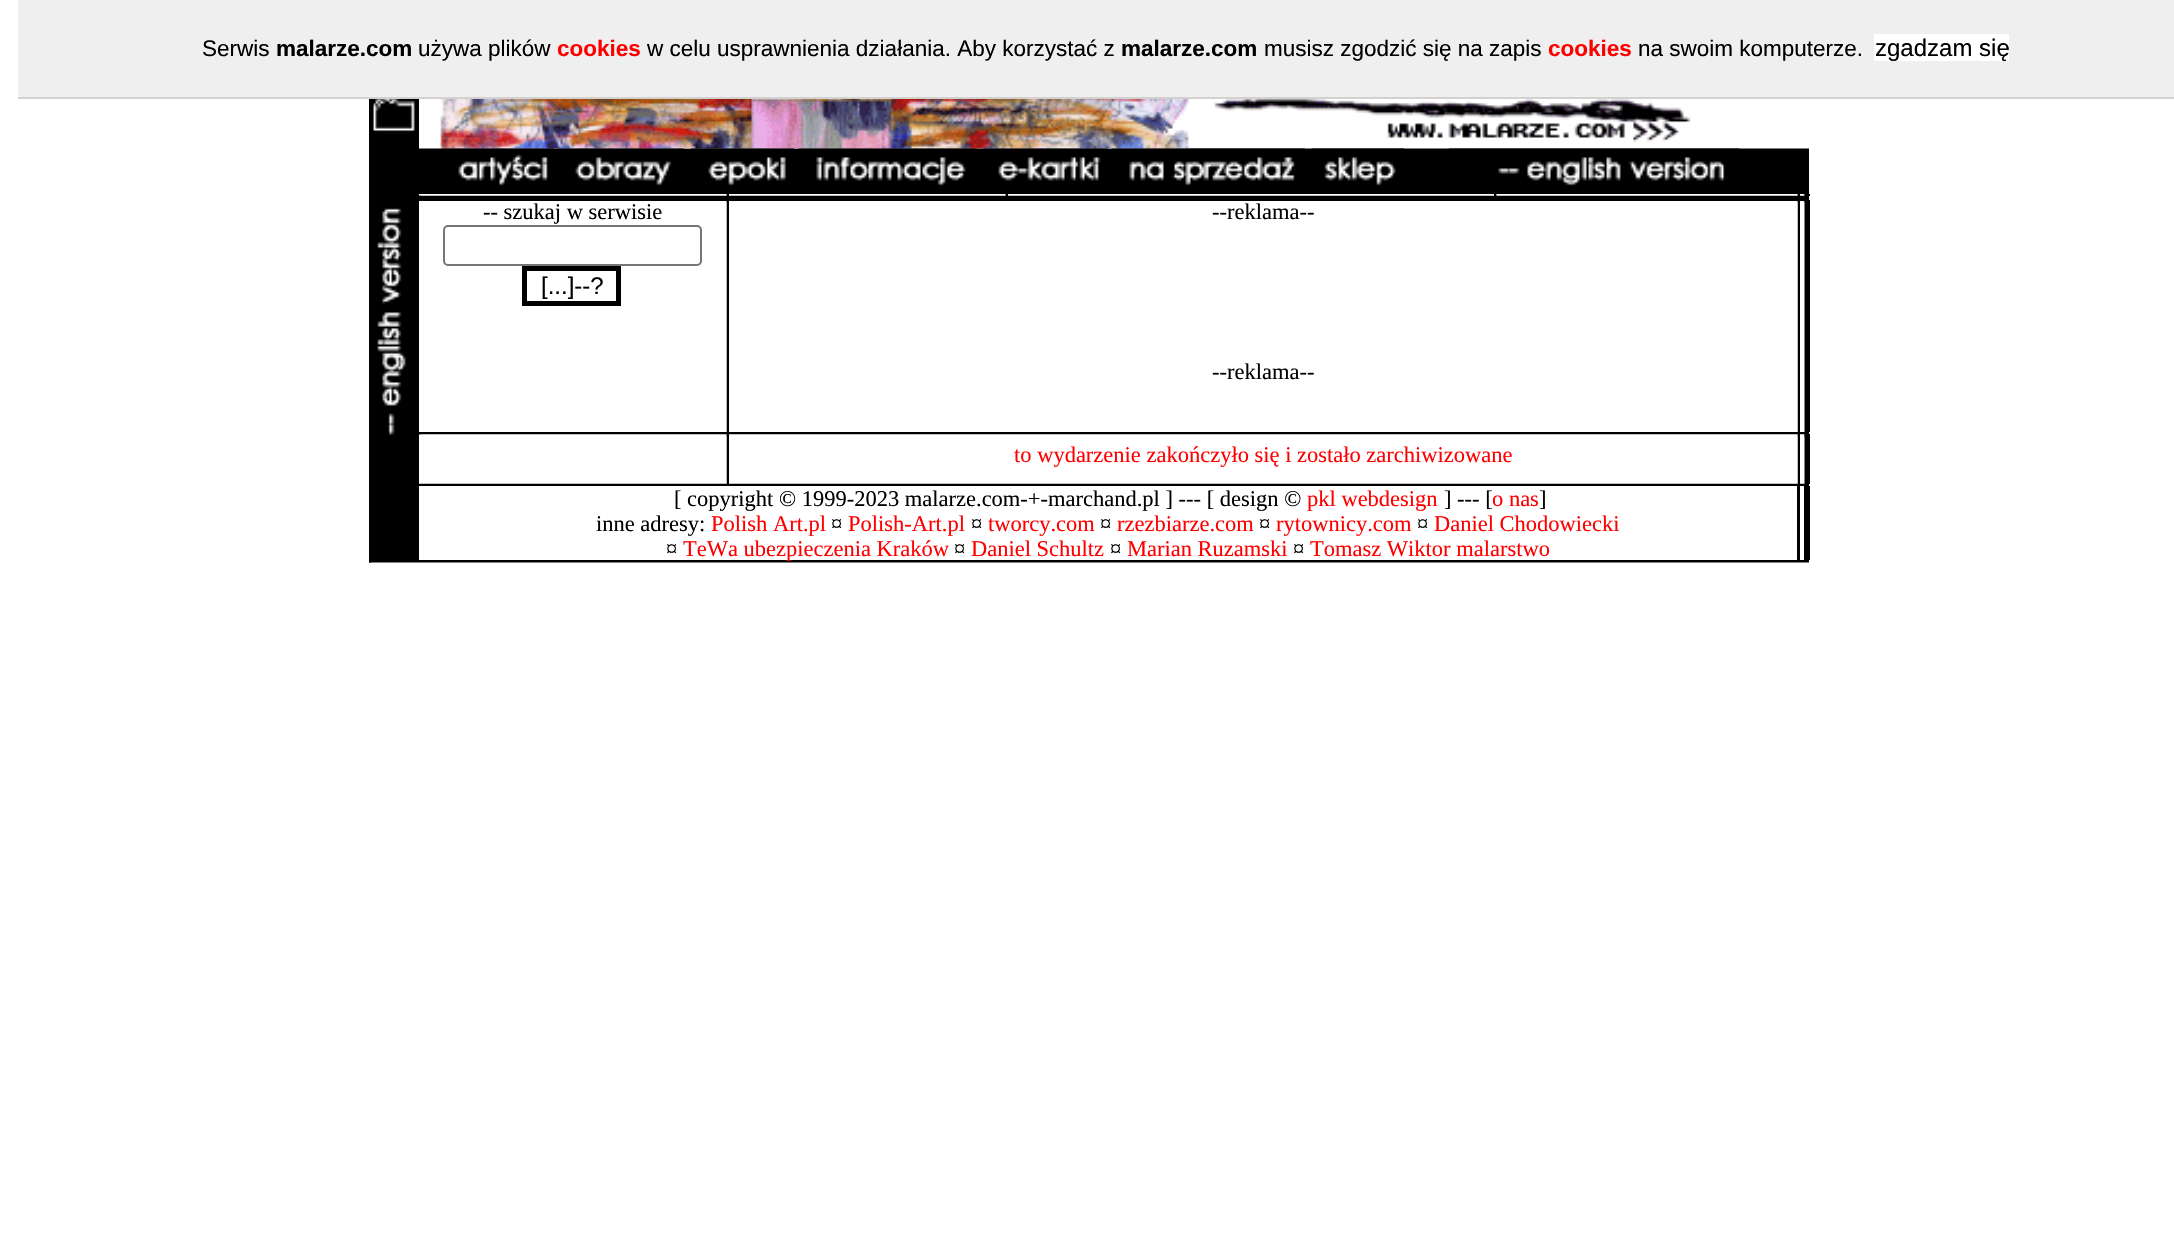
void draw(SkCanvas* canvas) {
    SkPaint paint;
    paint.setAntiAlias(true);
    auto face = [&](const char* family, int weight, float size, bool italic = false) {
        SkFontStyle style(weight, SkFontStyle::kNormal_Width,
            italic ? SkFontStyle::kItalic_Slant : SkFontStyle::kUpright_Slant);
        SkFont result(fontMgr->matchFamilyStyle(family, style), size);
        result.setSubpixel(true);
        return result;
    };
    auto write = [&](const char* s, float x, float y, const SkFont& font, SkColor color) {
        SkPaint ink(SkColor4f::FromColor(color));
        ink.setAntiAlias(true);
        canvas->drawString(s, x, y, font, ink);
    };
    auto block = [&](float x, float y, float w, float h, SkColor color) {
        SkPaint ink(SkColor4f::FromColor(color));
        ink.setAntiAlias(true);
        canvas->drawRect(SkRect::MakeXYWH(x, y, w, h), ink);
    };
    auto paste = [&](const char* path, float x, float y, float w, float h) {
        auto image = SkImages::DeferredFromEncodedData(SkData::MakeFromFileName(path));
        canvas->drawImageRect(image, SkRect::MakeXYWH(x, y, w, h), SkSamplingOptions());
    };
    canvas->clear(SK_ColorWHITE);
    block(18, 0, 2156, 97, SkColorSetRGB(239, 239, 239));
    block(18, 97, 2156, 2, SkColorSetRGB(211, 208, 208));
    auto kFont1 = face("Liberation Sans", 400, 22.5f);
    write("Serwis", 202, 56, kFont1, SK_ColorBLACK);
    auto kFont2 = face("Liberation Sans", 700, 22.5f);
    write("malarze.com", 276, 56, kFont2, SK_ColorBLACK);
    write("używa plików", 418, 56, kFont1, SK_ColorBLACK);
    write("cookies", 557, 56, kFont2, SkColorSetRGB(255, 0, 0));
    write("w celu usprawnienia działania. Aby korzystać z", 647, 56, kFont1, SK_ColorBLACK);
    write("malarze.com", 1121, 56, kFont2, SK_ColorBLACK);
    write("musisz zgodzić się na zapis", 1264, 56, kFont1, SK_ColorBLACK);
    write("cookies", 1548, 56, kFont2, SkColorSetRGB(255, 0, 0));
    write("na swoim komputerze.", 1638, 56, kFont1, SK_ColorBLACK);
    block(1874, 34, 135, 27, SK_ColorWHITE);
    auto kFont3 = face("Liberation Sans", 400, 24);
    write("zgadzam się", 1875, 56, kFont3, SK_ColorBLACK);
    block(369, 99, 50, 385, SK_ColorBLACK);
    paste("pic1.png", 373, 99, 42, 33);
    block(419, 148, 1390, 1, SkColorSetRGB(128, 128, 128));
    paste("pic2.png", 438, 99, 1253, 50);
    block(419, 149, 1390, 45, SK_ColorBLACK);
    paste("pic3.png", 441, 148, 113, 38);
    paste("pic4.png", 558, 148, 126, 38);
    paste("pic5.png", 690, 148, 105, 38);
    paste("pic6.png", 798, 148, 179, 38);
    paste("pic7.png", 983, 148, 124, 33);
    paste("pic8.png", 1111, 148, 194, 38);
    paste("pic9.png", 1311, 148, 93, 38);
    paste("pic10.png", 1449, 148, 291, 38);
    block(727, 194, 2, 2, SK_ColorBLACK);
    paste("pic11.png", 726, 194, 1, 2);
    block(1006, 194, 2, 2, SK_ColorBLACK);
    paste("pic11.png", 1005, 194, 1, 2);
    block(1494, 194, 2, 2, SK_ColorBLACK);
    paste("pic11.png", 1496, 194, 1, 2);
    block(1798, 194, 2, 2, SK_ColorBLACK);
    paste("pic11.png", 1797, 194, 1, 2);
    paste("pic13.png", 1804, 194, 1, 2);
    block(419, 195, 1386, 1, SkColorSetARGB(64, 0, 0, 0));
    paste("pic12.png", 726, 194, 1, 2);
    paste("pic12.png", 1005, 194, 1, 2);
    paste("pic12.png", 1496, 194, 1, 2);
    paste("pic12.png", 1797, 194, 1, 2);
    block(1805, 194, 5, 2, SK_ColorBLACK);
    paste("pic14.png", 1804, 194, 1, 2);
    paste("pic15.png", 377, 208, 29, 227);
    block(419, 196, 1390, 5, SK_ColorBLACK);
    paste("pic16.png", 419, 195, 2, 1);
    auto kFont4 = face("Liberation Serif", 400, 22.5f);
    write("-- szukaj w serwisie", 483, 219, kFont4, SK_ColorBLACK);
    paint.setStyle(SkPaint::kStroke_Style);
    paint.setStrokeWidth(2);
    paint.setColor(SkColorSetRGB(118, 118, 118));
    canvas->drawRoundRect(SkRect::MakeXYWH(444, 226, 257, 39), 4, 4, paint);
    paint.setStrokeWidth(5);
    paint.setColor(SK_ColorBLACK);
    canvas->drawRect(SkRect::MakeXYWH(524.5f, 268.5f, 94, 35), paint);
    write("[...]--?", 541, 294, kFont3, SK_ColorBLACK);
    block(727, 200, 2, 232, SK_ColorBLACK);
    block(726, 201, 1, 231, SkColorSetRGB(191, 191, 191));
    paste("pic17.png", 726, 201, 1, 2);
    write("--reklama--", 1212, 219, kFont4, SK_ColorBLACK);
    write("--reklama--", 1212, 379, kFont4, SK_ColorBLACK);
    block(1798, 200, 2, 232, SK_ColorBLACK);
    block(1797, 201, 1, 231, SkColorSetRGB(191, 191, 191));
    paste("pic17.png", 1797, 201, 1, 2);
    block(1805, 200, 5, 232, SK_ColorBLACK);
    block(1804, 201, 1, 231, SkColorSetRGB(128, 128, 128));
    paste("pic18.png", 1804, 201, 1, 2);
    block(419, 432, 1390, 2, SK_ColorBLACK);
    block(419, 434, 1390, 1, SkColorSetRGB(191, 191, 191));
    paste("pic16.png", 419, 434, 2, 1);
    block(727, 434, 2, 50, SK_ColorBLACK);
    paste("pic19.png", 726, 434, 1, 50);
    paste("pic20.png", 726, 434, 1, 3);
    write("to wydarzenie zakończyło się i zostało zarchiwizowane", 1014, 462, kFont4, SkColorSetRGB(255, 0, 0));
    block(1798, 434, 2, 50, SK_ColorBLACK);
    paste("pic19.png", 1797, 434, 1, 50);
    paste("pic20.png", 1797, 434, 1, 3);
    block(1805, 434, 5, 50, SK_ColorBLACK);
    paste("pic21.png", 1804, 434, 1, 50);
    paste("pic22.png", 1804, 434, 1, 3);
    block(369, 484, 1440, 2, SK_ColorBLACK);
    block(419, 483, 1386, 1, SkColorSetARGB(64, 0, 0, 0));
    block(369, 486, 50, 74, SK_ColorBLACK);
    write("[ copyright © 1999-2023 malarze.com-+-marchand.pl ] --- [ design ©", 674, 506, kFont4, SK_ColorBLACK);
    write("pkl webdesign", 1307, 506, kFont4, SkColorSetRGB(255, 0, 0));
    write("] --- [", 1444, 506, kFont4, SK_ColorBLACK);
    write("o nas", 1492, 506, kFont4, SkColorSetRGB(255, 0, 0));
    write("]", 1539, 506, kFont4, SK_ColorBLACK);
    write("inne adresy:", 596, 531, kFont4, SK_ColorBLACK);
    write("Polish Art.pl", 711, 531, kFont4, SkColorSetRGB(255, 0, 0));
    write("¤", 831, 531, kFont4, SK_ColorBLACK);
    write("Polish-Art.pl", 848, 531, kFont4, SkColorSetRGB(255, 0, 0));
    write("¤", 971, 531, kFont4, SK_ColorBLACK);
    write("tworcy.com", 988, 531, kFont4, SkColorSetRGB(255, 0, 0));
    write("¤", 1100, 531, kFont4, SK_ColorBLACK);
    write("rzezbiarze.com", 1117, 531, kFont4, SkColorSetRGB(255, 0, 0));
    write("¤", 1259, 531, kFont4, SK_ColorBLACK);
    write("rytownicy.com", 1276, 531, kFont4, SkColorSetRGB(255, 0, 0));
    write("¤", 1417, 531, kFont4, SK_ColorBLACK);
    write("Daniel Chodowiecki", 1434, 531, kFont4, SkColorSetRGB(255, 0, 0));
    write("¤", 666, 556, kFont4, SK_ColorBLACK);
    block(1797, 486, 3, 75, SK_ColorBLACK);
    block(1804, 486, 5, 75, SK_ColorBLACK);
    block(369, 560, 1440, 2, SK_ColorBLACK);
    write("TeWa ubezpieczenia Kraków", 683, 556, kFont4, SkColorSetRGB(255, 0, 0));
    write("¤", 954, 556, kFont4, SK_ColorBLACK);
    write("Daniel Schultz", 971, 556, kFont4, SkColorSetRGB(255, 0, 0));
    write("¤", 1110, 556, kFont4, SK_ColorBLACK);
    write("Marian Ruzamski", 1127, 556, kFont4, SkColorSetRGB(255, 0, 0));
    write("¤", 1293, 556, kFont4, SK_ColorBLACK);
    write("Tomasz Wiktor malarstwo", 1310, 556, kFont4, SkColorSetRGB(255, 0, 0));
    block(1809, 486, 1, 74, SK_ColorBLACK);
    block(369, 562, 1440, 1, SkColorSetRGB(128, 128, 128));
    paste("pic23.png", 369, 562, 3, 1);
}
